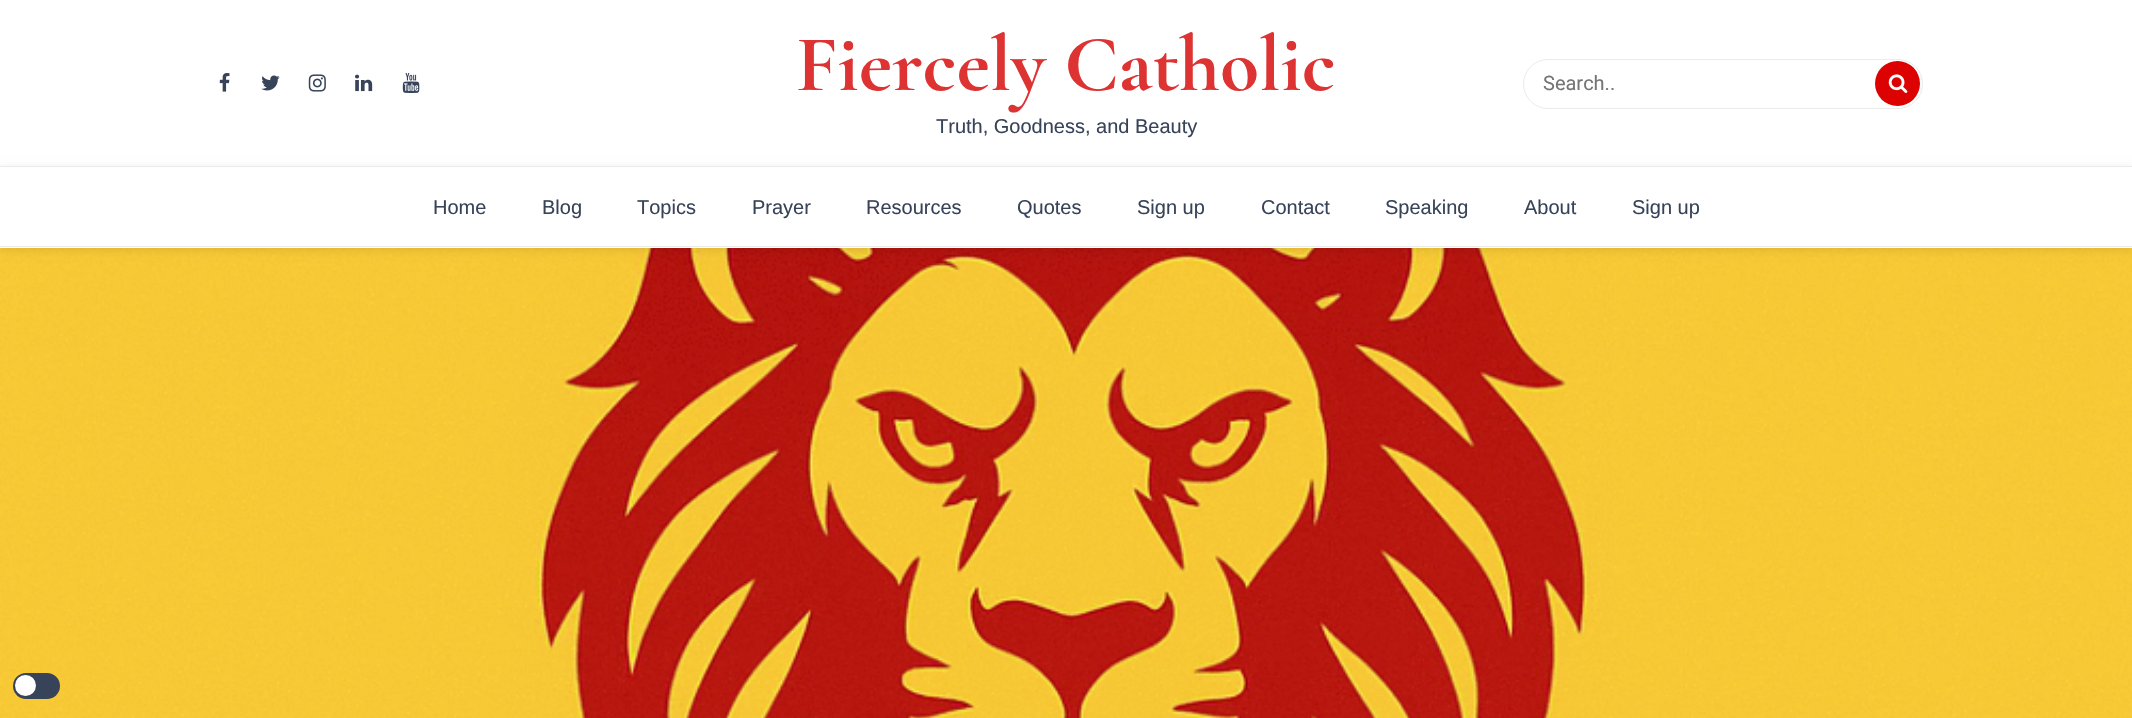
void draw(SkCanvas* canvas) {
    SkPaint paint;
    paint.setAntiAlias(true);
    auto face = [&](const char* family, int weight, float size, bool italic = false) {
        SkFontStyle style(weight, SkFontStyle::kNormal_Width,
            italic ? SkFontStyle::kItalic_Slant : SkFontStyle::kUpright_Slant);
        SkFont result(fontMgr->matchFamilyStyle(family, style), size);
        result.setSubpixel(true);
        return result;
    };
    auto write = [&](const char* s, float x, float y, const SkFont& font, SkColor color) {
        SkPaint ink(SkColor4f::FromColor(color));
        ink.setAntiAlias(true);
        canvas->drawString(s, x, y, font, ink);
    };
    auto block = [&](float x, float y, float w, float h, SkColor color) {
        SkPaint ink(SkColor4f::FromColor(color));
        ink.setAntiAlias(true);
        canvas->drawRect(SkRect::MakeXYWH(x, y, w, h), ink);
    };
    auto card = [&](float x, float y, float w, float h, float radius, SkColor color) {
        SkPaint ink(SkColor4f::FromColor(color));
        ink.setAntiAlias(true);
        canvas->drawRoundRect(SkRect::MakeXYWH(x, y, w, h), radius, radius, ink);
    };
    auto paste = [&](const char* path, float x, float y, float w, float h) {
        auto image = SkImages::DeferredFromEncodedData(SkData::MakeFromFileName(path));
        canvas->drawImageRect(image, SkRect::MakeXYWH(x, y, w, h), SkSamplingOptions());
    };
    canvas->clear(SK_ColorWHITE);
    paste("pic1.png", 219, 73, 11, 19);
    paste("pic2.png", 261, 75, 19, 16);
    paste("pic3.png", 308, 74, 18, 18);
    paste("pic4.png", 355, 74, 18, 18);
    paste("pic5.png", 402, 73, 18, 20);
    auto kFont1 = face("Cormorant Garamond", 700, 80);
    write("Fiercely Catholic", 796, 90, kFont1, SkColorSetRGB(221, 51, 51));
    auto kFont2 = face("Liberation Sans", 400, 20);
    write("Truth, Goodness, and Beauty", 936, 133, kFont2, SkColorSetRGB(55, 67, 89));
    paint.setStyle(SkPaint::kStroke_Style);
    paint.setStrokeWidth(1);
    paint.setColor(SkColorSetRGB(235, 235, 235));
    canvas->drawRoundRect(SkRect::MakeXYWH(1523.5f, 59.5f, 399, 49), 24.5f, 24.5f, paint);
    auto kFont3 = face("Roboto", 400, 20);
    write("Search..", 1543, 90, kFont3, SkColorSetRGB(117, 117, 117));
    paint.setStyle(SkPaint::kFill_Style);
    paint.setColor(SkColorSetRGB(221, 2, 2));
    canvas->drawCircle(1897.5f, 83.5f, 22.5f, paint);
    paste("pic6.png", 1888, 74, 20, 19);
    paste("pic7.png", 0, 248, 2132, 470);
    paint.setColor(SkColorSetARGB(26, 0, 0, 0));
    paint.setMaskFilter(SkMaskFilter::MakeBlur(kNormal_SkBlurStyle, 4.5f));
    canvas->drawRect(SkRect::MakeXYWH(0, 169, 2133, 81), paint);
    paint.setMaskFilter(nullptr);
    block(0, 167, 2132, 81, SK_ColorWHITE);
    block(0, 246, 2132, 1, SkColorSetRGB(235, 235, 235));
    block(0, 166, 2132, 1, SkColorSetRGB(235, 235, 235));
    write("Home", 433, 214, kFont2, SkColorSetRGB(55, 67, 89));
    write("Blog", 542, 214, kFont2, SkColorSetRGB(55, 67, 89));
    write("Topics", 637, 214, kFont2, SkColorSetRGB(55, 67, 89));
    write("Prayer", 752, 214, kFont2, SkColorSetRGB(55, 67, 89));
    write("Resources", 866, 214, kFont2, SkColorSetRGB(55, 67, 89));
    write("Quotes", 1017, 214, kFont2, SkColorSetRGB(55, 67, 89));
    write("Sign up", 1137, 214, kFont2, SkColorSetRGB(55, 67, 89));
    write("Contact", 1261, 214, kFont2, SkColorSetRGB(55, 67, 89));
    write("Speaking", 1385, 214, kFont2, SkColorSetRGB(55, 67, 89));
    write("About", 1524, 214, kFont2, SkColorSetRGB(55, 67, 89));
    write("Sign up", 1632, 214, kFont2, SkColorSetRGB(55, 67, 89));
    card(13, 673, 47, 26, 13, SkColorSetRGB(55, 67, 89));
    paint.setColor(SK_ColorWHITE);
    canvas->drawCircle(25.5f, 685.5f, 10.5f, paint);
}
